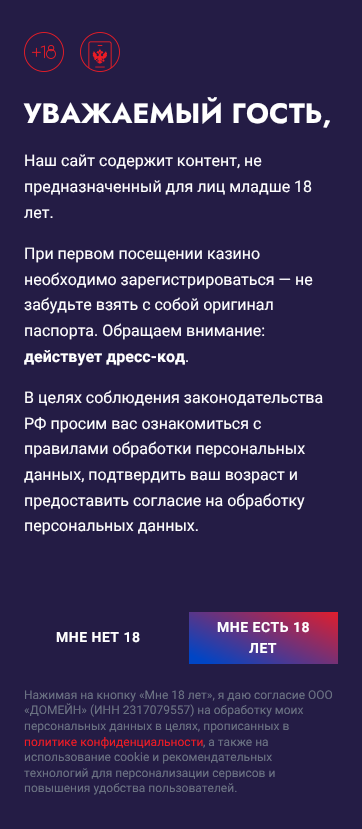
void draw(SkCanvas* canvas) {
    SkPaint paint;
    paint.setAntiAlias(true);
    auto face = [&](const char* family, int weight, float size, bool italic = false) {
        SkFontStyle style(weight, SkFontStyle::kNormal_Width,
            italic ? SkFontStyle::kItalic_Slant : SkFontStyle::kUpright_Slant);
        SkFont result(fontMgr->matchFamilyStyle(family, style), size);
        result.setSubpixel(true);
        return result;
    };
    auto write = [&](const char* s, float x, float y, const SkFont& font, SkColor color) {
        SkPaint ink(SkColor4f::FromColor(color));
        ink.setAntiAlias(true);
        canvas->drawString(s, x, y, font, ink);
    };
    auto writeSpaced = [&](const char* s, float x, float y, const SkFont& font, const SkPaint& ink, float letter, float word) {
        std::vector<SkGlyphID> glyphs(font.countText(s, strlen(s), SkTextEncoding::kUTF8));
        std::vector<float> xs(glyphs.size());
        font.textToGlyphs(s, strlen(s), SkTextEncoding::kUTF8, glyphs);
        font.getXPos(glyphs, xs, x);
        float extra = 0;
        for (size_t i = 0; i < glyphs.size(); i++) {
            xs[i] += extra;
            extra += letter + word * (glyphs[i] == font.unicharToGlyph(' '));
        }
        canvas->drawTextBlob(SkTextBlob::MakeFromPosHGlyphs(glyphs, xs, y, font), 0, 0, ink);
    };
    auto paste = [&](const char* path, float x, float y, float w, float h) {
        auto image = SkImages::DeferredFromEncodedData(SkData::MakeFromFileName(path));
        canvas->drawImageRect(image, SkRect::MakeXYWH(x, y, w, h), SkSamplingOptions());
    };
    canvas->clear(SkColorSetRGB(36, 28, 69));
    paste("pic1.png", 24, 32, 40, 40);
    paste("pic2.png", 80, 32, 40, 40);
    auto kFont1 = face("Jost", 700, 28);
    paint.setColor(SK_ColorWHITE);
    writeSpaced("УВАЖАЕМЫЙ ГОСТЬ,", 24, 123, kFont1, paint, 0.25f, 0);
    auto kFont2 = face("Roboto", 400, 16);
    write("Наш сайт содержит контент, не", 24, 166, kFont2, SK_ColorWHITE);
    write("предназначенный для лиц младше 18", 24, 192, kFont2, SK_ColorWHITE);
    write("лет.", 24, 218, kFont2, SK_ColorWHITE);
    write("При первом посещении казино", 24, 259, kFont2, SK_ColorWHITE);
    write("необходимо зарегистрироваться — не", 24, 285, kFont2, SK_ColorWHITE);
    write("забудьте взять с собой оригинал", 24, 310, kFont2, SK_ColorWHITE);
    write("паспорта. Обращаем внимание:", 24, 336, kFont2, SK_ColorWHITE);
    auto kFont3 = face("Roboto", 700, 16);
    write("действует дресс-код", 24, 362, kFont3, SK_ColorWHITE);
    write(".", 185, 362, kFont2, SK_ColorWHITE);
    write("В целях соблюдения законодательства", 24, 403, kFont2, SK_ColorWHITE);
    write("РФ просим вас ознакомиться с", 24, 429, kFont2, SK_ColorWHITE);
    write("правилами обработки персональных", 24, 454, kFont2, SK_ColorWHITE);
    write("данных, подтвердить ваш возраст и", 24, 480, kFont2, SK_ColorWHITE);
    write("предоставить согласие на обработку", 24, 506, kFont2, SK_ColorWHITE);
    write("персональных данных.", 24, 531, kFont2, SK_ColorWHITE);
    auto kFont4 = face("Roboto", 700, 14);
    writeSpaced("МНЕ НЕТ 18", 56, 642, kFont4, paint, 0.5f, 0);
    {
        const SkColor colors[] = {SkColorSetRGB(0, 69, 197), SkColorSetRGB(236, 28, 37)};
        const float stops[] = {0.08f, 1};
        const SkPoint ends[] = {{241, 688}, {288, 584}};
        paint.setShader(SkGradientShader::MakeLinear(ends, colors, stops, 2, SkTileMode::kClamp));
        paint.setAlpha(255);
    }
    canvas->drawRect(SkRect::MakeXYWH(189, 612, 149, 52), paint);
    paint.setShader(nullptr);
    paint.setColor(SK_ColorWHITE);
    writeSpaced("МНЕ ЕСТЬ 18", 217, 632, kFont4, paint, 0.5f, 0);
    writeSpaced("ЛЕТ", 249, 653, kFont4, paint, 0.5f, 0);
    auto kFont5 = face("Roboto", 400, 12);
    write("Нажимая на кнопку «Мне 18 лет», я даю согласие ООО", 24, 699, kFont5, SkColorSetRGB(107, 114, 131));
    write("«ДОМЕЙН» (ИНН 2317079557) на обработку моих", 24, 714, kFont5, SkColorSetRGB(107, 114, 131));
    write("персональных данных в целях, прописанных в", 24, 730, kFont5, SkColorSetRGB(107, 114, 131));
    write("политике конфиденциальности", 24, 746, kFont5, SkColorSetRGB(236, 28, 37));
    write(", а также на", 203, 746, kFont5, SkColorSetRGB(107, 114, 131));
    write("использование cookie и рекомендательных", 24, 761, kFont5, SkColorSetRGB(107, 114, 131));
    write("технологий для персонализации сервисов и", 24, 777, kFont5, SkColorSetRGB(107, 114, 131));
    write("повышения удобства пользователей.", 24, 792, kFont5, SkColorSetRGB(107, 114, 131));
}
